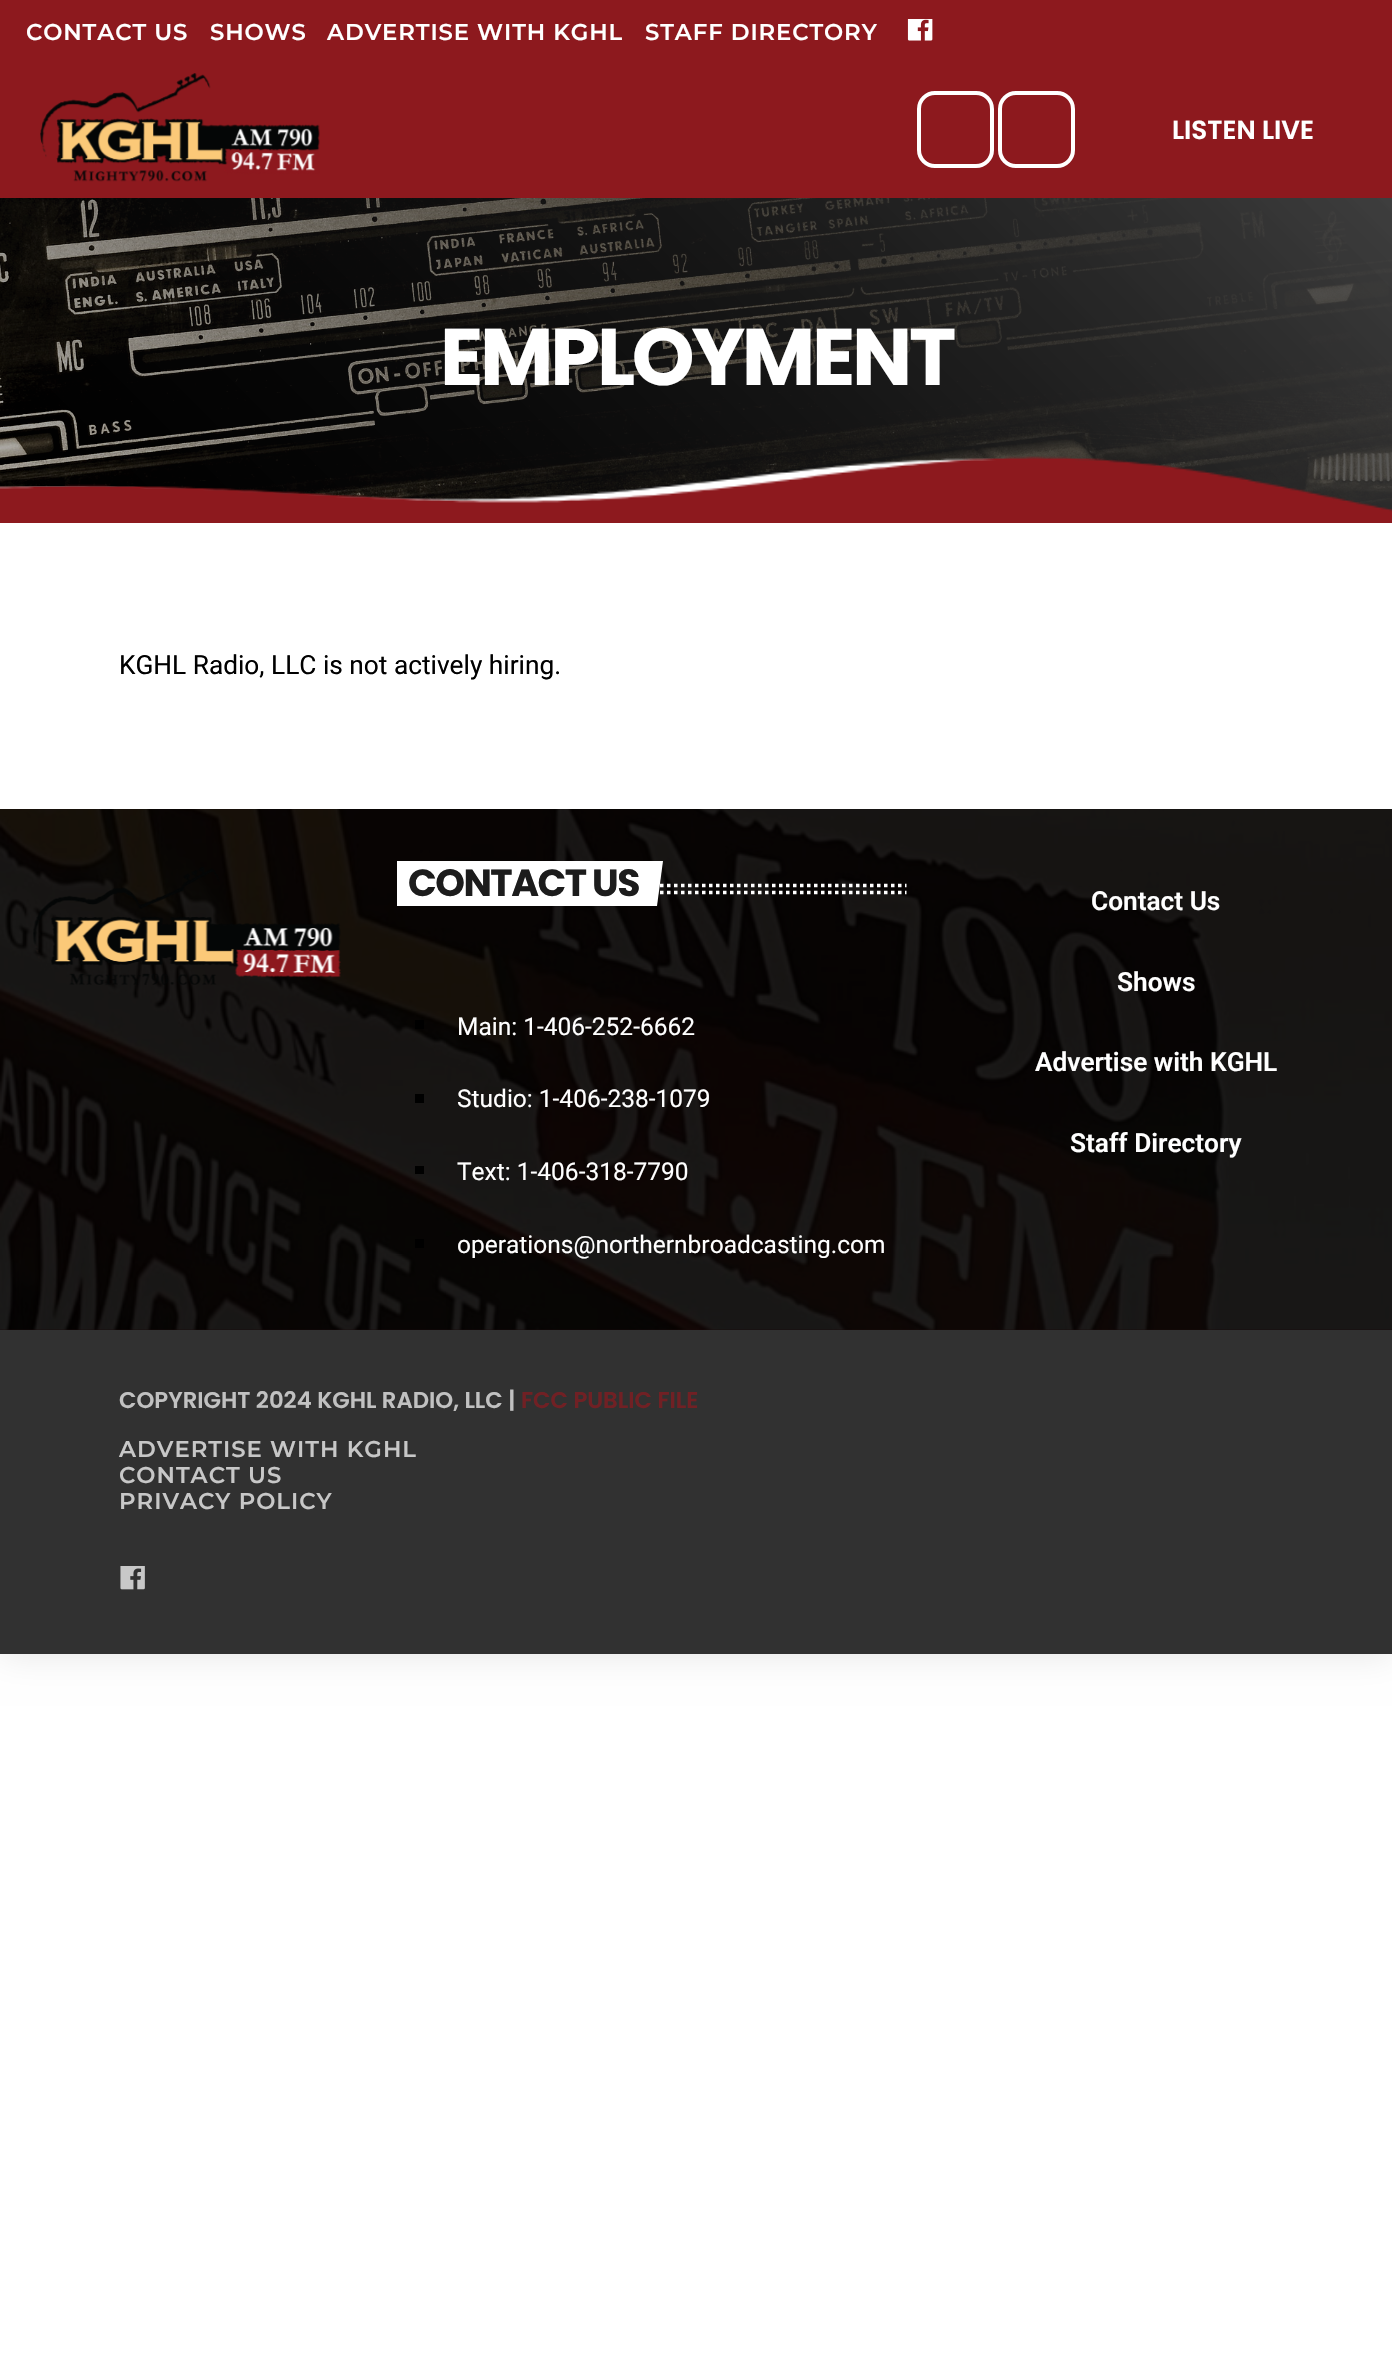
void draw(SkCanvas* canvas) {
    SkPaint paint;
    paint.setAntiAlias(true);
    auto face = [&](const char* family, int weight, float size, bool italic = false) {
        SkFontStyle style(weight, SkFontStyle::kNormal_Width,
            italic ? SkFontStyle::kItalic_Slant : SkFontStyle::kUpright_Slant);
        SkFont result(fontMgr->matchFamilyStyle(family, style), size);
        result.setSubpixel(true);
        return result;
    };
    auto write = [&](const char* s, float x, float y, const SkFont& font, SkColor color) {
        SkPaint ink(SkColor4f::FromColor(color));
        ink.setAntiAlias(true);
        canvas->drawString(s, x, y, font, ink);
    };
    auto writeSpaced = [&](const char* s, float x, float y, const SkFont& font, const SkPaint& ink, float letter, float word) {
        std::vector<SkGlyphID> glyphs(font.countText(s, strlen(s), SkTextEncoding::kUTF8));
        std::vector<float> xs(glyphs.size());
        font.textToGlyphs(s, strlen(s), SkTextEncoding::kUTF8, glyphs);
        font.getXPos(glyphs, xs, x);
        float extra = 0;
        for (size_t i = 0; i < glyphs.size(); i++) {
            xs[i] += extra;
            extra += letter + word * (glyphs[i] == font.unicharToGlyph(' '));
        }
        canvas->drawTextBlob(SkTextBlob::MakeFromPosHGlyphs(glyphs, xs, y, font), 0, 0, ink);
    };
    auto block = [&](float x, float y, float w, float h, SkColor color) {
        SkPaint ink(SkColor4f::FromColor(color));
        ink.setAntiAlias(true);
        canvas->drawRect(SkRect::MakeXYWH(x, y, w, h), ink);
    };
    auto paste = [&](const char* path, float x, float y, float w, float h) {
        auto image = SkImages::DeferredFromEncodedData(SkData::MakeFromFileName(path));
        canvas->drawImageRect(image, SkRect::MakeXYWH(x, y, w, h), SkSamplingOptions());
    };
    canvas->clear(SK_ColorWHITE);
    paint.setColor(SkColorSetARGB(26, 0, 0, 0));
    paint.setMaskFilter(SkMaskFilter::MakeBlur(kNormal_SkBlurStyle, 17.5f));
    canvas->drawRect(SkRect::MakeXYWH(0, 0, 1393, 1654), paint);
    paint.setMaskFilter(nullptr);
    block(0, 0, 1392, 198, SkColorSetRGB(141, 25, 30));
    auto kFont1 = face("Montserrat", 100, 22.75f);
    paint.setColor(SK_ColorWHITE);
    writeSpaced("CONTACT US", 26, 40, kFont1, paint, 0.9f, 0);
    writeSpaced("SHOWS", 210, 40, kFont1, paint, 0.9f, 0);
    writeSpaced("ADVERTISE WITH KGHL", 327, 40, kFont1, paint, 0.9f, 0);
    writeSpaced("STAFF DIRECTORY", 645, 40, kFont1, paint, 0.9f, 0);
    paste("pic1.png", 907, 19, 26, 22);
    paste("pic2.png", 40, 73, 280, 109);
    paint.setStyle(SkPaint::kStroke_Style);
    paint.setStrokeWidth(4);
    canvas->drawRoundRect(SkRect::MakeXYWH(919, 93, 73, 73), 16, 16, paint);
    canvas->drawRoundRect(SkRect::MakeXYWH(1000, 93, 73, 73), 16, 16, paint);
    auto kFont2 = face("Poppins", 600, 26.25f);
    write("LISTEN LIVE", 1172, 139, kFont2, SK_ColorWHITE);
    paste("pic3.png", 0, 198, 1392, 314);
    paint.setStyle(SkPaint::kFill_Style);
    {
        const SkColor colors[] = {SkColorSetARGB(33, 0, 0, 0), SkColorSetRGB(76, 76, 76)};
        const float stops[] = {0, 1};
        const SkPoint ends[] = {{217, 741}, {1176, -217}};
        paint.setShader(SkGradientShader::MakeLinear(ends, colors, stops, 2, SkTileMode::kClamp));
        paint.setAlpha(255);
    }
    canvas->drawRect(SkRect::MakeXYWH(0, 198, 1392, 314), paint);
    auto kFont3 = face("Poppins", 700, 80);
    paint.setShader(nullptr);
    paint.setColor(SK_ColorWHITE);
    writeSpaced("EMPLOYMENT", 440, 385, kFont3, paint, -3.25f, 0);
    paste("pic5.png", 0, 458, 997, 45);
    paste("pic4.png", 0, 456, 1392, 67);
    block(0, 523, 1392, 286, SK_ColorWHITE);
    auto kFont4 = face("Roboto", 400, 26.25f);
    write("KGHL Radio, LLC is not actively hiring.", 119, 674, kFont4, SK_ColorBLACK);
    block(0, 809, 1392, 521, SkColorSetRGB(23, 7, 7));
    paste("pic6.png", 0, 809, 1392, 521);
    paste("pic7.png", 33, 867, 308, 118);
    paint.setStyle(SkPaint::kStroke_Style);
    paint.setStrokeWidth(3.5f);
    paint.setPathEffect(SkDashPathEffect::Make({{3.5f, 3.5f}}, 0));
    canvas->drawPath(SkPathBuilder().moveTo(408, 885.5f).lineTo(906.5f, 885.5f).detach(), paint);
    paint.setPathEffect(nullptr);
    paint.setPathEffect(SkDashPathEffect::Make({{3.5f, 3.5f}}, 0));
    canvas->drawPath(SkPathBuilder().moveTo(408, 892.5f).lineTo(906.5f, 892.5f).detach(), paint);
    paint.setPathEffect(nullptr);
    canvas->save();
    canvas->clipRect(SkRect::MakeXYWH(397, 861, 268, 46));
    paint.setStyle(SkPaint::kFill_Style);
    canvas->drawPath(SkPathBuilder().moveTo(386, 861).lineTo(663, 861).lineTo(657, 906).lineTo(380, 906).close().detach(), paint);
    canvas->restore();
    auto kFont5 = face("Poppins", 700, 37.75f);
    paint.setColor(SkColorSetRGB(28, 28, 28));
    writeSpaced("CONTACT US", 408, 896, kFont5, paint, -1.5f, 0);
    block(415, 1020, 9, 9, SK_ColorBLACK);
    auto kFont6 = face("Roboto", 400, 24.5f);
    write("Main: 1-406-252-6662", 457, 1035, kFont6, SK_ColorWHITE);
    block(415, 1094, 9, 9, SK_ColorBLACK);
    write("Studio: 1-406-238-1079", 457, 1107, kFont6, SK_ColorWHITE);
    block(415, 1166, 9, 8, SK_ColorBLACK);
    write("Text: 1-406-318-7790", 457, 1180, kFont6, SK_ColorWHITE);
    block(415, 1239, 9, 9, SK_ColorBLACK);
    write("operations@northernbroadcasting.com", 457, 1253, kFont6, SK_ColorWHITE);
    auto kFont7 = face("Roboto", 600, 26.25f);
    write("Contact Us", 1091, 910, kFont7, SK_ColorWHITE);
    write("Shows", 1117, 991, kFont7, SK_ColorWHITE);
    write("Advertise with KGHL", 1035, 1071, kFont7, SK_ColorWHITE);
    write("Staff Directory", 1070, 1152, kFont7, SK_ColorWHITE);
    block(0, 1330, 1392, 324, SkColorSetRGB(49, 49, 49));
    auto kFont8 = face("Poppins", 600, 22.75f);
    write("COPYRIGHT 2024 KGHL RADIO, LLC |", 119, 1408, kFont8, SkColorSetRGB(193, 193, 193));
    write("FCC PUBLIC FILE", 521, 1408, kFont8, SkColorSetRGB(113, 32, 36));
    paint.setColor(SkColorSetRGB(199, 199, 199));
    writeSpaced("ADVERTISE WITH KGHL", 119, 1457, kFont1, paint, 1, 0);
    writeSpaced("CONTACT US", 119, 1483, kFont1, paint, 1, 0);
    writeSpaced("PRIVACY POLICY", 119, 1509, kFont1, paint, 1, 0);
    paste("pic8.png", 120, 1566, 25, 24);
}
